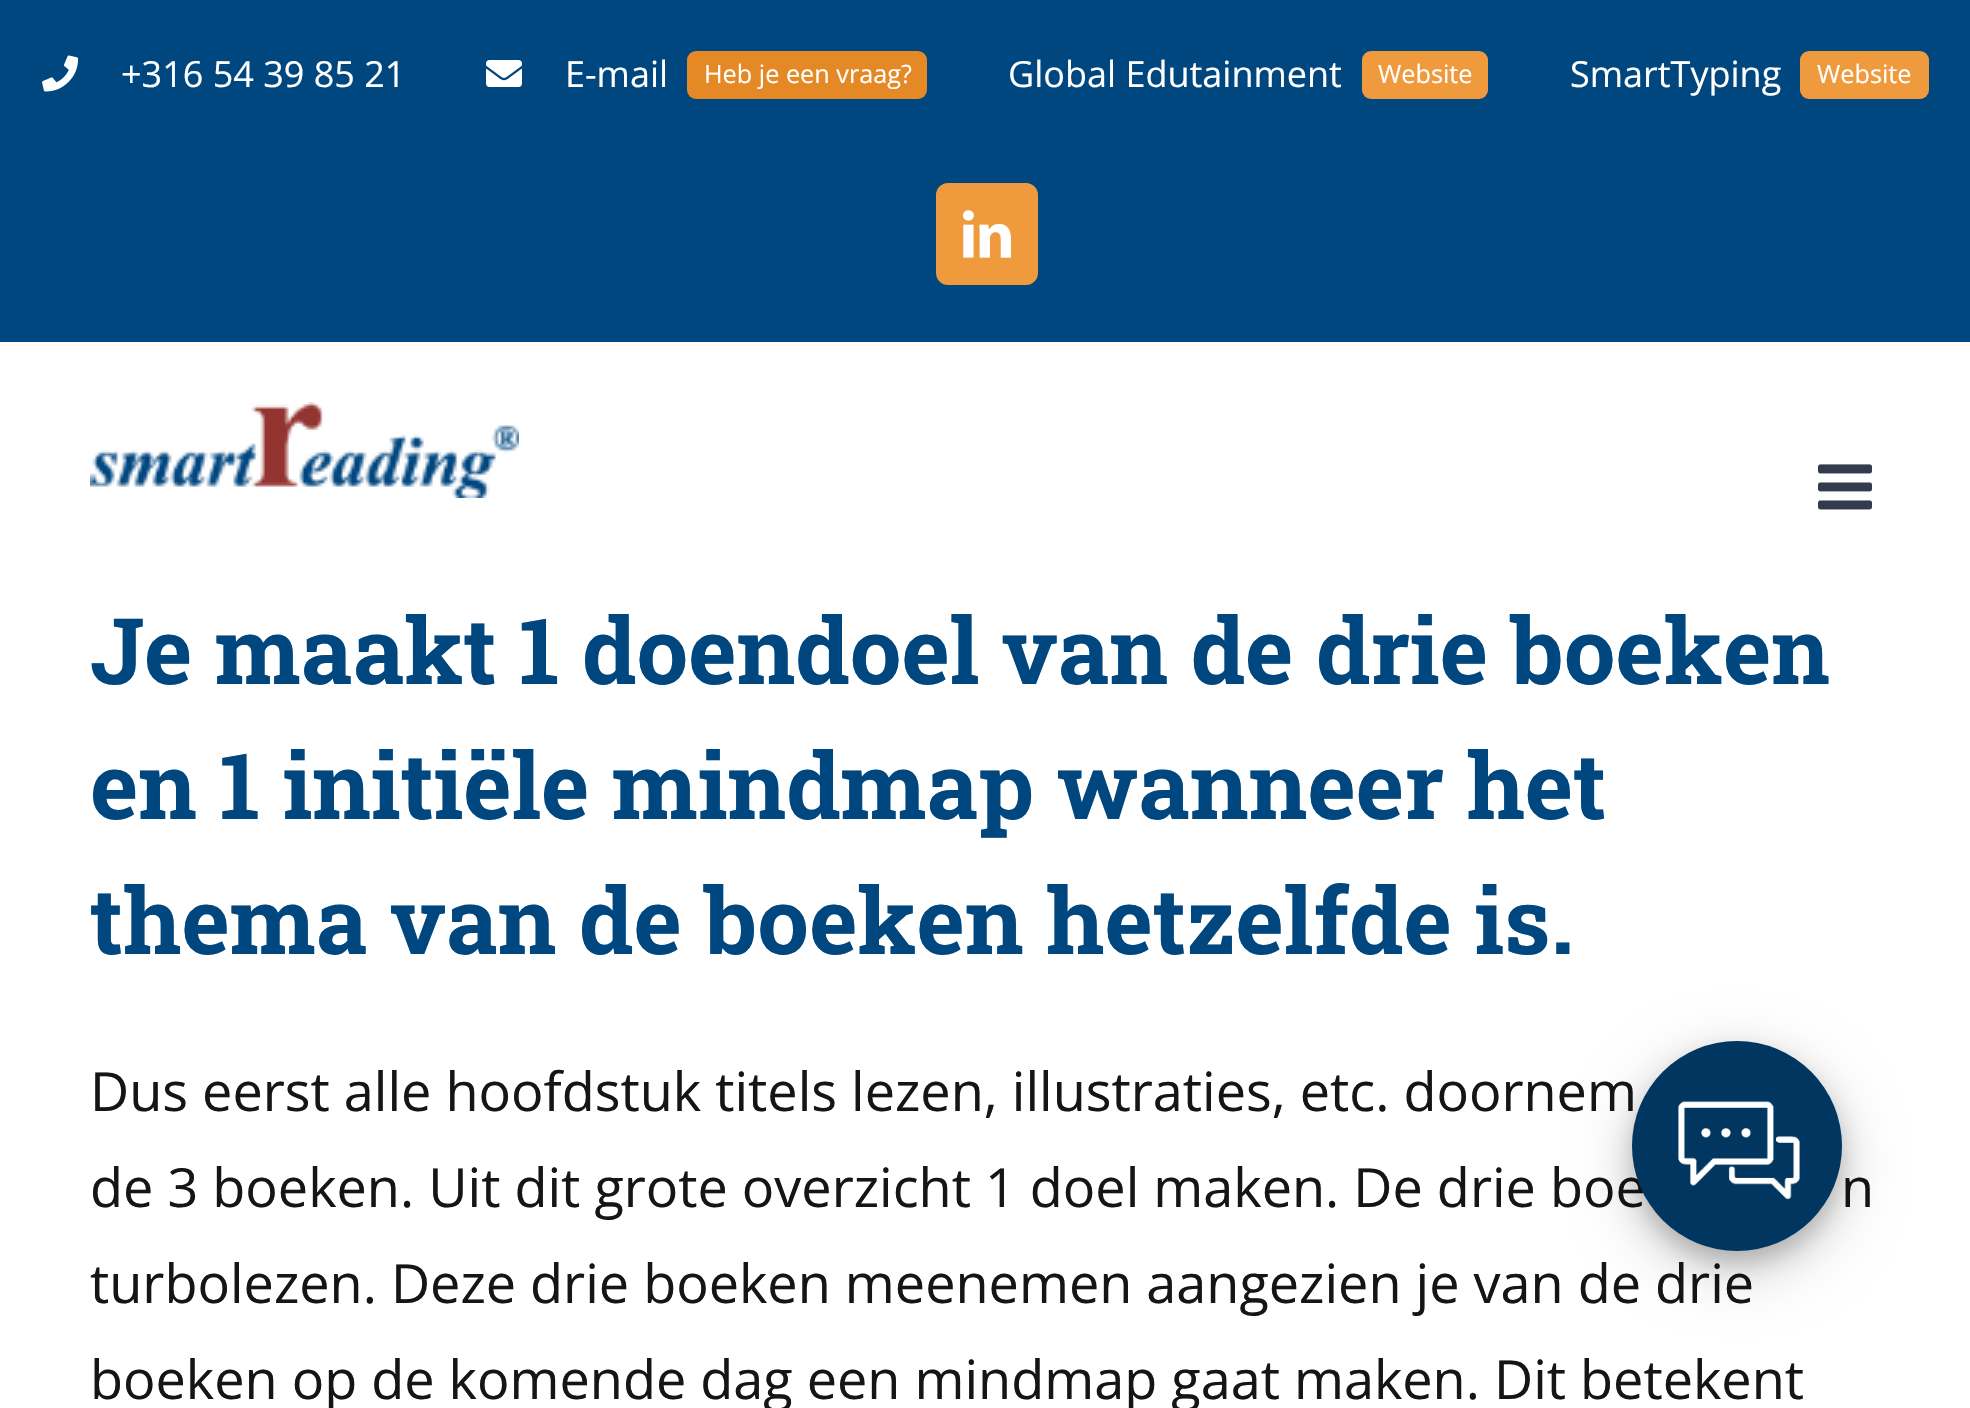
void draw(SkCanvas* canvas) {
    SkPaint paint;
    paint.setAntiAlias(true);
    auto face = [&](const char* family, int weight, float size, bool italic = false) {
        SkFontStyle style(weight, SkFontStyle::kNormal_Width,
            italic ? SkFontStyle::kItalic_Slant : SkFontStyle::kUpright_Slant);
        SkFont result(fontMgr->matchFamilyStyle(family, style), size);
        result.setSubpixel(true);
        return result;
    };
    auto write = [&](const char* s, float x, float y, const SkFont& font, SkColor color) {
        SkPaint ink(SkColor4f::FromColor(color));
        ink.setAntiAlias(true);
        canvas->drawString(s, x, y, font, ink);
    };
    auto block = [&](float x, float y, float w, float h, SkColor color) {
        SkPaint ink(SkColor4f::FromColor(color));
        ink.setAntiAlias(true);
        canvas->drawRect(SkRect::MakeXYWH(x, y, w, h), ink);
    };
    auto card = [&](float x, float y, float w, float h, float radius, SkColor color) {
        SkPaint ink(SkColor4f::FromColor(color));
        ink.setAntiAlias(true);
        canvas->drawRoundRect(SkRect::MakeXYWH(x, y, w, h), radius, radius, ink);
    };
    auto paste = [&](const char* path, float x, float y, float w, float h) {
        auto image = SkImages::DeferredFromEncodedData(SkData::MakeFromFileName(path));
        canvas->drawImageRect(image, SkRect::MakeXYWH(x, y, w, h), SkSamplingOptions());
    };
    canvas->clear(SK_ColorWHITE);
    block(0, 0, 1970, 342, SkColorSetRGB(0, 70, 127));
    paste("pic1.png", 42, 55, 37, 37);
    auto kFont1 = face("Open Sans", 400, 36);
    write("+316 54 39 85 21", 121, 87, kFont1, SK_ColorWHITE);
    paste("pic2.png", 486, 60, 36, 27);
    write("E-mail", 565, 87, kFont1, SK_ColorWHITE);
    card(687, 51, 240, 48, 9, SkColorSetRGB(229, 137, 38));
    auto kFont2 = face("Open Sans", 400, 25.25f);
    write("Heb je een vraag?", 704, 83, kFont2, SK_ColorWHITE);
    write("Global Edutainment", 1008, 87, kFont1, SK_ColorWHITE);
    card(1362, 51, 126, 48, 9, SkColorSetRGB(240, 154, 62));
    write("Website", 1378, 83, kFont2, SK_ColorWHITE);
    write("SmartTyping", 1570, 87, kFont1, SK_ColorWHITE);
    card(1800, 51, 129, 48, 9, SkColorSetRGB(240, 154, 62));
    write("Website", 1817, 83, kFont2, SK_ColorWHITE);
    paint.setColor(SkColorSetRGB(240, 154, 62));
    canvas->drawRoundRect(SkRect::MakeXYWH(937.5f, 184.5f, 99, 99), 10.5f, 10.5f, paint);
    paint.setStyle(SkPaint::kStroke_Style);
    paint.setStrokeWidth(3);
    canvas->drawRoundRect(SkRect::MakeXYWH(937.5f, 184.5f, 99, 99), 10.5f, 10.5f, paint);
    paste("pic3.png", 963, 210, 48, 48);
    paste("pic4.png", 90, 402, 429, 96);
    paste("pic5.png", 1818, 464, 54, 46);
    auto kFont3 = face("Roboto Slab", 700, 91.9f);
    write("Je maakt 1 doendoel van de drie boeken", 90, 684, kFont3, SkColorSetRGB(0, 70, 127));
    write("en 1 initiële mindmap wanneer het", 90, 819, kFont3, SkColorSetRGB(0, 70, 127));
    write("thema van de boeken hetzelfde is.", 90, 954, kFont3, SkColorSetRGB(0, 70, 127));
    auto kFont4 = face("Open Sans", 400, 54);
    write("Dus eerst alle hoofdstuk titels lezen, illustraties, etc. doornem", 90, 1111, kFont4, SkColorSetRGB(22, 21, 20));
    write("de 3 boeken. Uit dit grote overzicht 1 doel maken. De drie boe", 90, 1207, kFont4, SkColorSetRGB(22, 21, 20));
    write("n", 1841, 1207, kFont4, SkColorSetRGB(22, 21, 20));
    write("turbolezen. Deze drie boeken meenemen aangezien je van de drie", 90, 1303, kFont4, SkColorSetRGB(22, 21, 20));
    write("boeken op de komende dag een mindmap gaat maken. Dit betekent", 90, 1399, kFont4, SkColorSetRGB(22, 21, 20));
    paint.setStyle(SkPaint::kFill_Style);
    paint.setColor(SkColorSetARGB(48, 0, 0, 0));
    paint.setMaskFilter(SkMaskFilter::MakeBlur(kNormal_SkBlurStyle, 30));
    canvas->drawRoundRect(SkRect::MakeXYWH(1632, 1059, 210, 210), 105, 105, paint);
    paint.setMaskFilter(nullptr);
    paint.setColor(SkColorSetARGB(51, 0, 0, 0));
    paint.setMaskFilter(SkMaskFilter::MakeBlur(kNormal_SkBlurStyle, 12));
    canvas->drawRoundRect(SkRect::MakeXYWH(1632, 1053, 210, 210), 105, 105, paint);
    paint.setMaskFilter(nullptr);
    paint.setColor(SkColorSetRGB(0, 54, 95));
    canvas->drawCircle(1737, 1146, 105, paint);
    paste("pic6.png", 1678, 1101, 122, 99);
}
